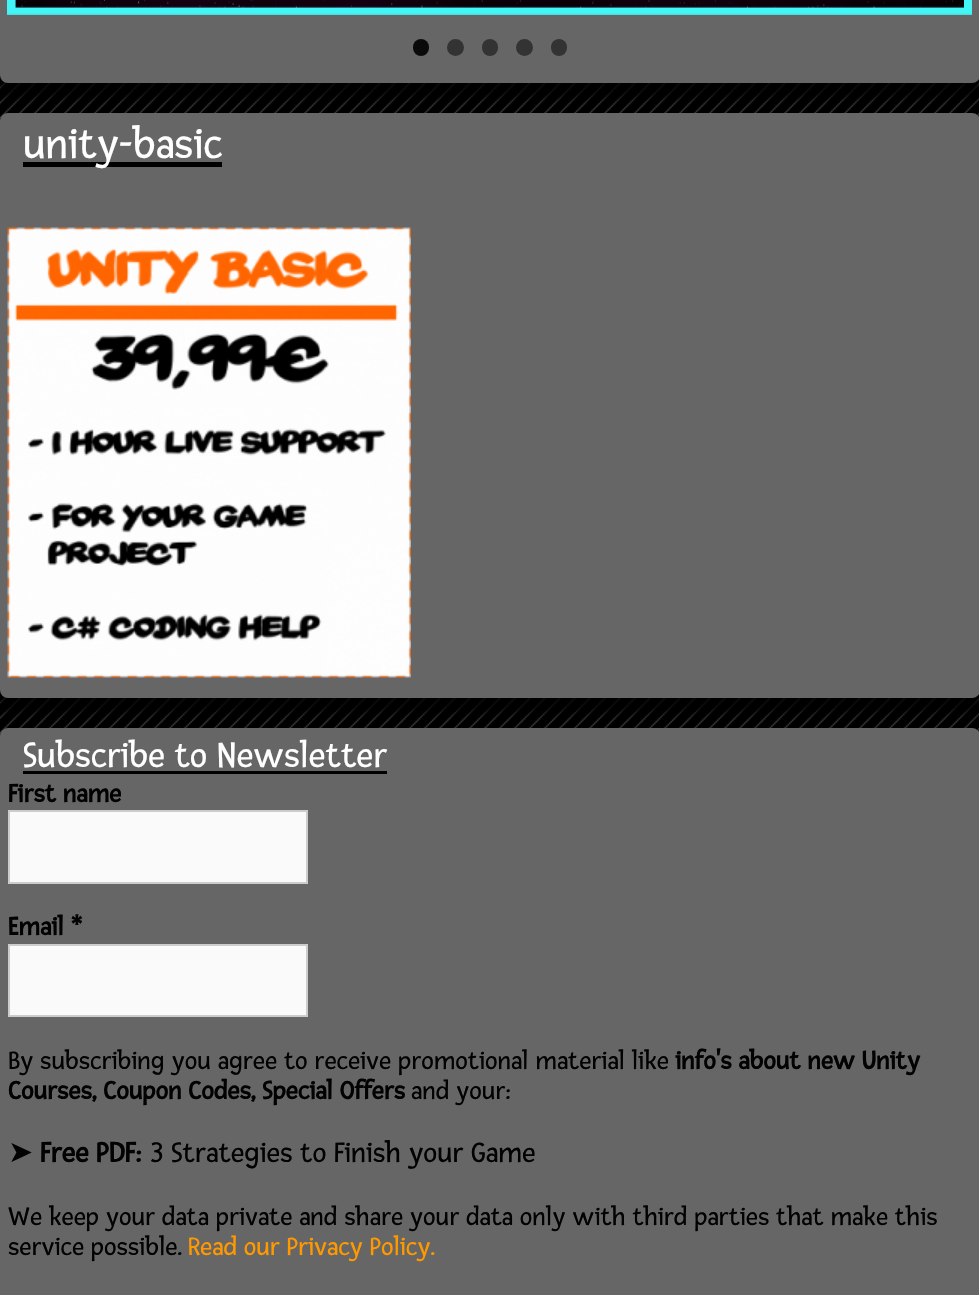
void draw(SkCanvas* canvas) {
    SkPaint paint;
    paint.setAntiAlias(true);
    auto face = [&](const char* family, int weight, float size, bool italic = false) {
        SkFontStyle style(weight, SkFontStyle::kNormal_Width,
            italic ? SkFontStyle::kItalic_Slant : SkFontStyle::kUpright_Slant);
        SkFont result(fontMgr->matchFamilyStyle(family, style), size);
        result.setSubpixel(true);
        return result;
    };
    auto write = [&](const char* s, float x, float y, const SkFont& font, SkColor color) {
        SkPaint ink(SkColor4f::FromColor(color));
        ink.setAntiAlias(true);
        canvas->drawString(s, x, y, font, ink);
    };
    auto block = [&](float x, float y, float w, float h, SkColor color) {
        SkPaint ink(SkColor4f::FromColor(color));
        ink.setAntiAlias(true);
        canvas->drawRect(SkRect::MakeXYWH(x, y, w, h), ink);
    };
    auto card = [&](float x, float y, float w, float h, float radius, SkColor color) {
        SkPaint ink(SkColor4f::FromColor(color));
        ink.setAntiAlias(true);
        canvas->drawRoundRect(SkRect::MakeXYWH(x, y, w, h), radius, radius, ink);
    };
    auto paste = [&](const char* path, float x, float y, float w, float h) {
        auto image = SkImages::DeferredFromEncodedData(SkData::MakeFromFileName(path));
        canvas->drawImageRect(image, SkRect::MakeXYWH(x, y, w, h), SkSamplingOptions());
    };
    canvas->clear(SK_ColorWHITE);
    paste("pic1.png", 0, 75, 979, 661);
    paint.setColor(SkColorSetARGB(191, 0, 0, 0));
    paint.setMaskFilter(SkMaskFilter::MakeBlur(kNormal_SkBlurStyle, 4));
    canvas->drawRoundRect(SkRect::MakeXYWH(0, -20, 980, 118), 8, 8, paint);
    paint.setMaskFilter(nullptr);
    card(0, -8, 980, 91, 8, SkColorSetRGB(102, 102, 102));
    paste("pic2.png", 7, 0, 965, 15);
    card(413, 39, 16, 17, 8, SkColorSetRGB(10, 10, 10));
    paint.setColor(SkColorSetRGB(51, 51, 51));
    canvas->drawCircle(455.5f, 47.5f, 8.5f, paint);
    card(482, 39, 16, 17, 8, SkColorSetRGB(51, 51, 51));
    canvas->drawCircle(524.5f, 47.5f, 8.5f, paint);
    card(551, 39, 16, 17, 8, SkColorSetRGB(51, 51, 51));
    paint.setColor(SkColorSetARGB(191, 0, 0, 0));
    paint.setMaskFilter(SkMaskFilter::MakeBlur(kNormal_SkBlurStyle, 4));
    canvas->drawRoundRect(SkRect::MakeXYWH(0, 128, 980, 585), 8, 8, paint);
    paint.setMaskFilter(nullptr);
    card(0, 113, 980, 585, 8, SkColorSetRGB(102, 102, 102));
    block(23, 162, 199, 5, SK_ColorBLACK);
    auto kFont1 = face("Fresca", 400, 45);
    write("unity-basic", 23, 158, kFont1, SK_ColorWHITE);
    paste("pic3.png", 7, 227, 404, 451);
    card(0, 728, 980, 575, 8, SkColorSetRGB(102, 102, 102));
    auto kFont2 = face("Fresca", 400, 37.5f);
    write("Subscribe to Newsletter", 23, 767, kFont2, SK_ColorWHITE);
    block(23, 771, 364, 3, SK_ColorBLACK);
    auto kFont3 = face("Fresca", 700, 27);
    write("First name", 8, 802, kFont3, SkColorSetRGB(2, 2, 2));
    paint.setColor(SkColorSetRGB(250, 250, 250));
    canvas->drawRect(SkRect::MakeXYWH(9, 811, 298, 72), paint);
    paint.setStyle(SkPaint::kStroke_Style);
    paint.setStrokeWidth(2);
    paint.setColor(SkColorSetRGB(204, 204, 204));
    canvas->drawRect(SkRect::MakeXYWH(9, 811, 298, 72), paint);
    write("Email *", 8, 935, kFont3, SkColorSetRGB(2, 2, 2));
    paint.setStyle(SkPaint::kFill_Style);
    paint.setColor(SkColorSetRGB(250, 250, 250));
    canvas->drawRect(SkRect::MakeXYWH(9, 945, 298, 71), paint);
    paint.setStyle(SkPaint::kStroke_Style);
    paint.setColor(SkColorSetRGB(204, 204, 204));
    canvas->drawRect(SkRect::MakeXYWH(9, 945, 298, 71), paint);
    auto kFont4 = face("Fresca", 400, 27);
    write("By subscribing you agree to receive promotional material like", 8, 1069, kFont4, SkColorSetRGB(2, 2, 2));
    write("info's about new Unity", 675, 1069, kFont3, SkColorSetRGB(2, 2, 2));
    write("Courses, Coupon Codes, Special Offers", 8, 1099, kFont3, SkColorSetRGB(2, 2, 2));
    write("and your:", 411, 1099, kFont4, SkColorSetRGB(2, 2, 2));
    auto kFont5 = face("DejaVu Sans", 400, 30);
    write("➤", 8, 1162, kFont5, SkColorSetRGB(2, 2, 2));
    auto kFont6 = face("Fresca", 700, 30);
    write("Free PDF:", 40, 1162, kFont6, SkColorSetRGB(2, 2, 2));
    auto kFont7 = face("Fresca", 400, 30);
    write("3 Strategies to Finish your Game", 150, 1162, kFont7, SkColorSetRGB(2, 2, 2));
    write("We keep your data private and share your data only with third parties that make this", 8, 1225, kFont4, SkColorSetRGB(2, 2, 2));
    write("service possible.", 8, 1255, kFont4, SkColorSetRGB(2, 2, 2));
    write("Read our Privacy Policy.", 188, 1255, kFont4, SkColorSetRGB(255, 153, 0));
}
